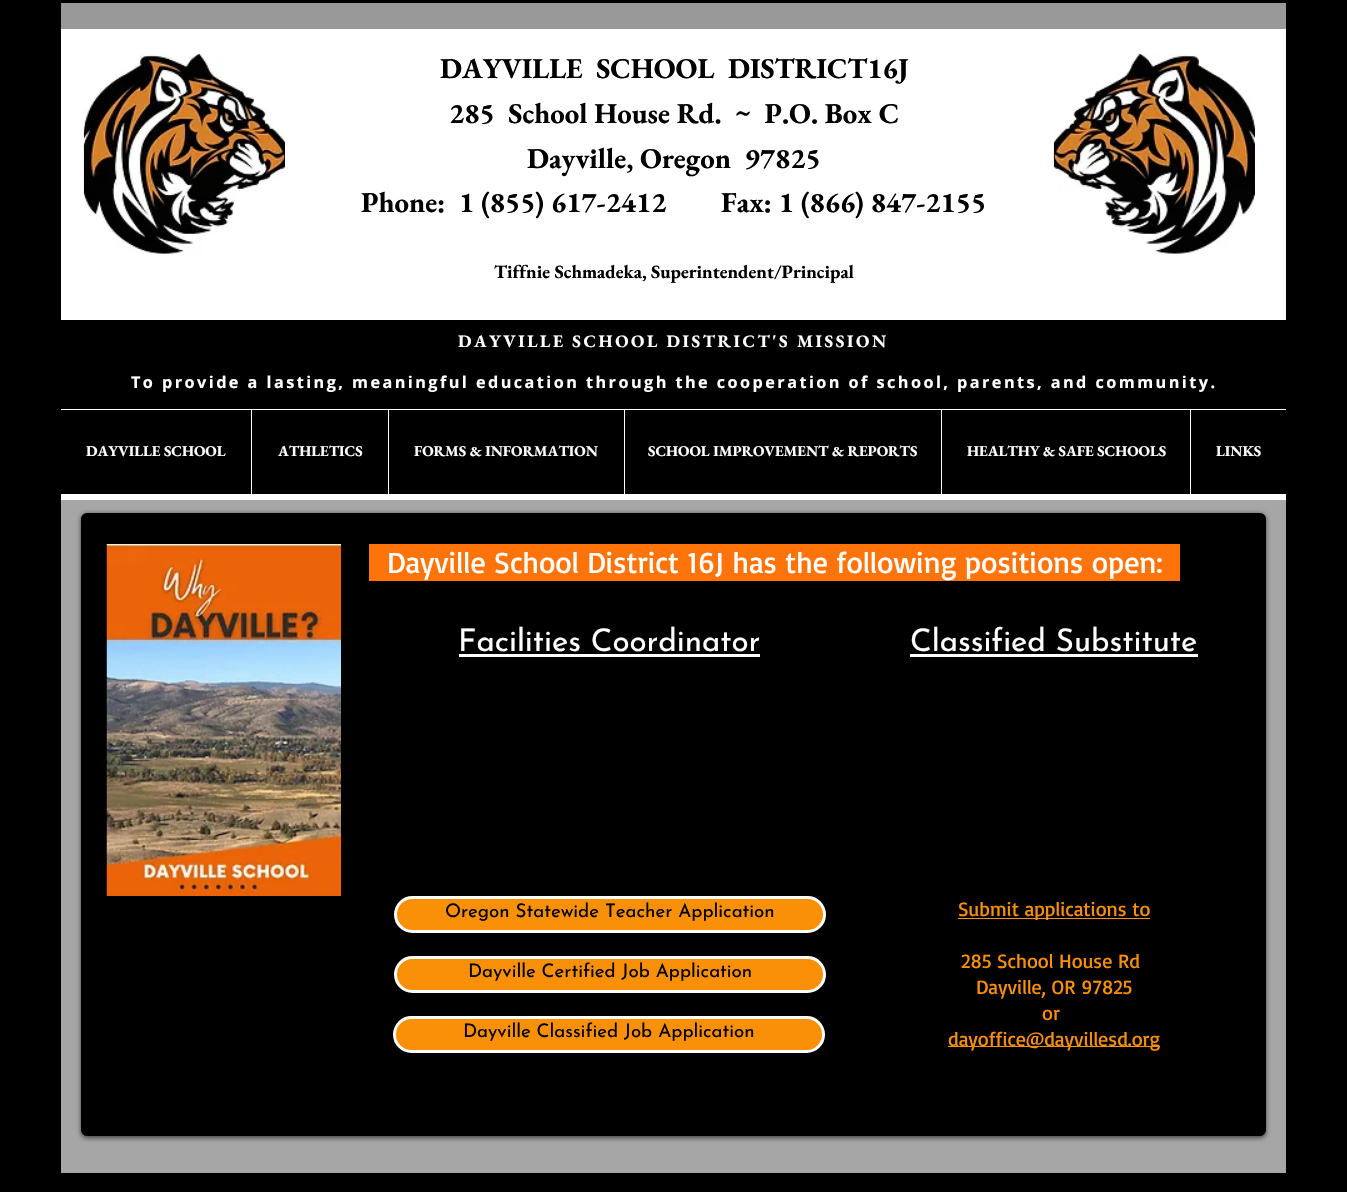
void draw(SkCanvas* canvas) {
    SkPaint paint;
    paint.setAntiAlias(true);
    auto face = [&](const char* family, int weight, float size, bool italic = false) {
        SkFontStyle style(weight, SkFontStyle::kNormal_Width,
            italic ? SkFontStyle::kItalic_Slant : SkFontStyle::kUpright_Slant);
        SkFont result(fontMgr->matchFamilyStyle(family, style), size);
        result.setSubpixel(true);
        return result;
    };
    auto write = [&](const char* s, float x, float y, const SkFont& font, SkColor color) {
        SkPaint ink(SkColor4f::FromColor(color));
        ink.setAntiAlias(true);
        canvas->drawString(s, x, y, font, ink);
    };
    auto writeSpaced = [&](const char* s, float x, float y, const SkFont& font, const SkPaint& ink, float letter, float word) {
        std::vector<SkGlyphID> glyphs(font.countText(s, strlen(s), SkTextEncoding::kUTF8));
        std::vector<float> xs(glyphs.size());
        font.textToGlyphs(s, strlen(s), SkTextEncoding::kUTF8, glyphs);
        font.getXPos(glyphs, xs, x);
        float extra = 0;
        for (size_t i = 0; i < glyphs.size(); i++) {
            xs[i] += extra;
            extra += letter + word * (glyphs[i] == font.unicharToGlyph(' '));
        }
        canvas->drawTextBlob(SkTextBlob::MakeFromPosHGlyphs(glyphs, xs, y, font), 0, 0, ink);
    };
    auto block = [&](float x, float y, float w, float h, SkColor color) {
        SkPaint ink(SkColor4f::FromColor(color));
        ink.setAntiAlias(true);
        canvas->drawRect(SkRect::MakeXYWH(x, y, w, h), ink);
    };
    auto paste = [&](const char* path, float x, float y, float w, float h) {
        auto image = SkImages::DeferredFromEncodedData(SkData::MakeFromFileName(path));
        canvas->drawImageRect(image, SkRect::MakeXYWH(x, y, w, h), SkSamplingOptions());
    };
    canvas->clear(SK_ColorBLACK);
    block(61, 3, 1225, 26, SkColorSetRGB(153, 153, 153));
    block(61, 29, 1225, 471, SK_ColorWHITE);
    paste("pic1.png", 83, 53, 202, 201);
    auto kFont1 = face("EB Garamond", 700, 28.75f);
    write("DAYVILLE  SCHOOL  DISTRICT16J", 440, 78, kFont1, SK_ColorBLACK);
    write("285  School House Rd.  ~  P.O. Box C", 449, 123, kFont1, SK_ColorBLACK);
    write("Dayville, Oregon  97825", 527, 168, kFont1, SK_ColorBLACK);
    write("Phone:  1 (855) 617-2412        Fax: 1 (866) 847-2155", 361, 212, kFont1, SK_ColorBLACK);
    paste("pic2.png", 1053, 53, 202, 201);
    auto kFont2 = face("EB Garamond", 700, 18.75f);
    write("Tiffnie Schmadeka, Superintendent/Principal", 494, 278, kFont2, SK_ColorBLACK);
    block(61, 320, 1225, 89, SK_ColorBLACK);
    auto kFont3 = face("EB Garamond", 700, 17.5f);
    paint.setColor(SK_ColorWHITE);
    writeSpaced("DAYVILLE SCHOOL DISTRICT'S MISSION", 458, 347, kFont3, paint, 2.6f, 0);
    auto kFont4 = face("Open Sans", 700, 16.25f);
    writeSpaced("To provide a lasting, meaningful education through the cooperation of school, parents, and community.", 131, 388, kFont4, paint, 2.44f, 0);
    block(61, 410, 1225, 84, SK_ColorBLACK);
    auto kFont5 = face("EB Garamond", 700, 15);
    write("DAYVILLE SCHOOL", 86, 456, kFont5, SK_ColorWHITE);
    block(251, 410, 1, 84, SK_ColorWHITE);
    write("ATHLETICS", 278, 456, kFont5, SK_ColorWHITE);
    block(388, 410, 1, 84, SK_ColorWHITE);
    write("FORMS & INFORMATION", 414, 456, kFont5, SK_ColorWHITE);
    block(624, 410, 1, 84, SK_ColorWHITE);
    write("SCHOOL IMPROVEMENT & REPORTS", 648, 456, kFont5, SK_ColorWHITE);
    block(941, 410, 1, 84, SK_ColorWHITE);
    write("HEALTHY & SAFE SCHOOLS", 967, 456, kFont5, SK_ColorWHITE);
    block(1190, 410, 1, 84, SK_ColorWHITE);
    write("LINKS", 1216, 456, kFont5, SK_ColorWHITE);
    block(61, 500, 1225, 673, SkColorSetRGB(166, 166, 166));
    paint.setColor(SkColorSetARGB(153, 0, 0, 0));
    paint.setMaskFilter(SkMaskFilter::MakeBlur(kNormal_SkBlurStyle, 2.5f));
    canvas->drawRoundRect(SkRect::MakeXYWH(81, 514, 1185, 624), 6, 6, paint);
    paint.setMaskFilter(nullptr);
    paint.setColor(SK_ColorBLACK);
    canvas->drawRoundRect(SkRect::MakeXYWH(83, 515, 1181, 619), 4, 4, paint);
    paint.setStyle(SkPaint::kStroke_Style);
    paint.setStrokeWidth(4);
    canvas->drawRoundRect(SkRect::MakeXYWH(83, 515, 1181, 619), 4, 4, paint);
    paste("pic3.png", 106, 544, 235, 352);
    block(369, 544, 811, 37, SkColorSetRGB(255, 116, 10));
    auto kFont6 = face("Basic", 400, 30);
    write("Dayville School District 16J has the following positions open:", 387, 573, kFont6, SK_ColorWHITE);
    auto kFont7 = face("Josefin Sans", 400, 31.25f);
    write("Facilities Coordinator", 458, 651, kFont7, SK_ColorWHITE);
    block(459, 654, 301, 3, SK_ColorWHITE);
    write("Classified Substitute", 910, 651, kFont7, SK_ColorWHITE);
    block(910, 654, 288, 3, SK_ColorWHITE);
    paint.setStyle(SkPaint::kFill_Style);
    paint.setColor(SkColorSetRGB(250, 144, 7));
    canvas->drawRoundRect(SkRect::MakeXYWH(395.5f, 897.5f, 429, 34), 17, 17, paint);
    paint.setStyle(SkPaint::kStroke_Style);
    paint.setStrokeWidth(3);
    paint.setColor(SK_ColorWHITE);
    canvas->drawRoundRect(SkRect::MakeXYWH(395.5f, 897.5f, 429, 34), 17, 17, paint);
    auto kFont8 = face("Josefin Sans", 100, 18.75f);
    write("Oregon Statewide Teacher Application", 445, 917, kFont8, SK_ColorBLACK);
    block(958, 918, 192, 1, SkColorSetRGB(250, 144, 7));
    auto kFont9 = face("Basic", 400, 20);
    write("Submit applications to", 958, 916, kFont9, SkColorSetRGB(250, 144, 7));
    write("285 School House Rd", 961, 968, kFont9, SkColorSetRGB(250, 144, 7));
    write("Dayville, OR 97825", 976, 994, kFont9, SkColorSetRGB(250, 144, 7));
    write("or", 1042, 1020, kFont9, SkColorSetRGB(250, 144, 7));
    block(948, 1046, 212, 1, SkColorSetRGB(250, 144, 7));
    write("dayoffice@dayvillesd.org", 948, 1046, kFont9, SkColorSetRGB(250, 144, 7));
    paint.setStyle(SkPaint::kFill_Style);
    paint.setColor(SkColorSetRGB(250, 144, 7));
    canvas->drawRoundRect(SkRect::MakeXYWH(395.5f, 957.5f, 429, 34), 17, 17, paint);
    paint.setStyle(SkPaint::kStroke_Style);
    paint.setColor(SK_ColorWHITE);
    canvas->drawRoundRect(SkRect::MakeXYWH(395.5f, 957.5f, 429, 34), 17, 17, paint);
    write("Dayville Certified Job Application", 468, 977, kFont8, SK_ColorBLACK);
    paint.setStyle(SkPaint::kFill_Style);
    paint.setColor(SkColorSetRGB(250, 144, 7));
    canvas->drawRoundRect(SkRect::MakeXYWH(394.5f, 1017.5f, 429, 34), 17, 17, paint);
    paint.setStyle(SkPaint::kStroke_Style);
    paint.setColor(SK_ColorWHITE);
    canvas->drawRoundRect(SkRect::MakeXYWH(394.5f, 1017.5f, 429, 34), 17, 17, paint);
    write("Dayville Classified Job Application", 463, 1037, kFont8, SK_ColorBLACK);
}
